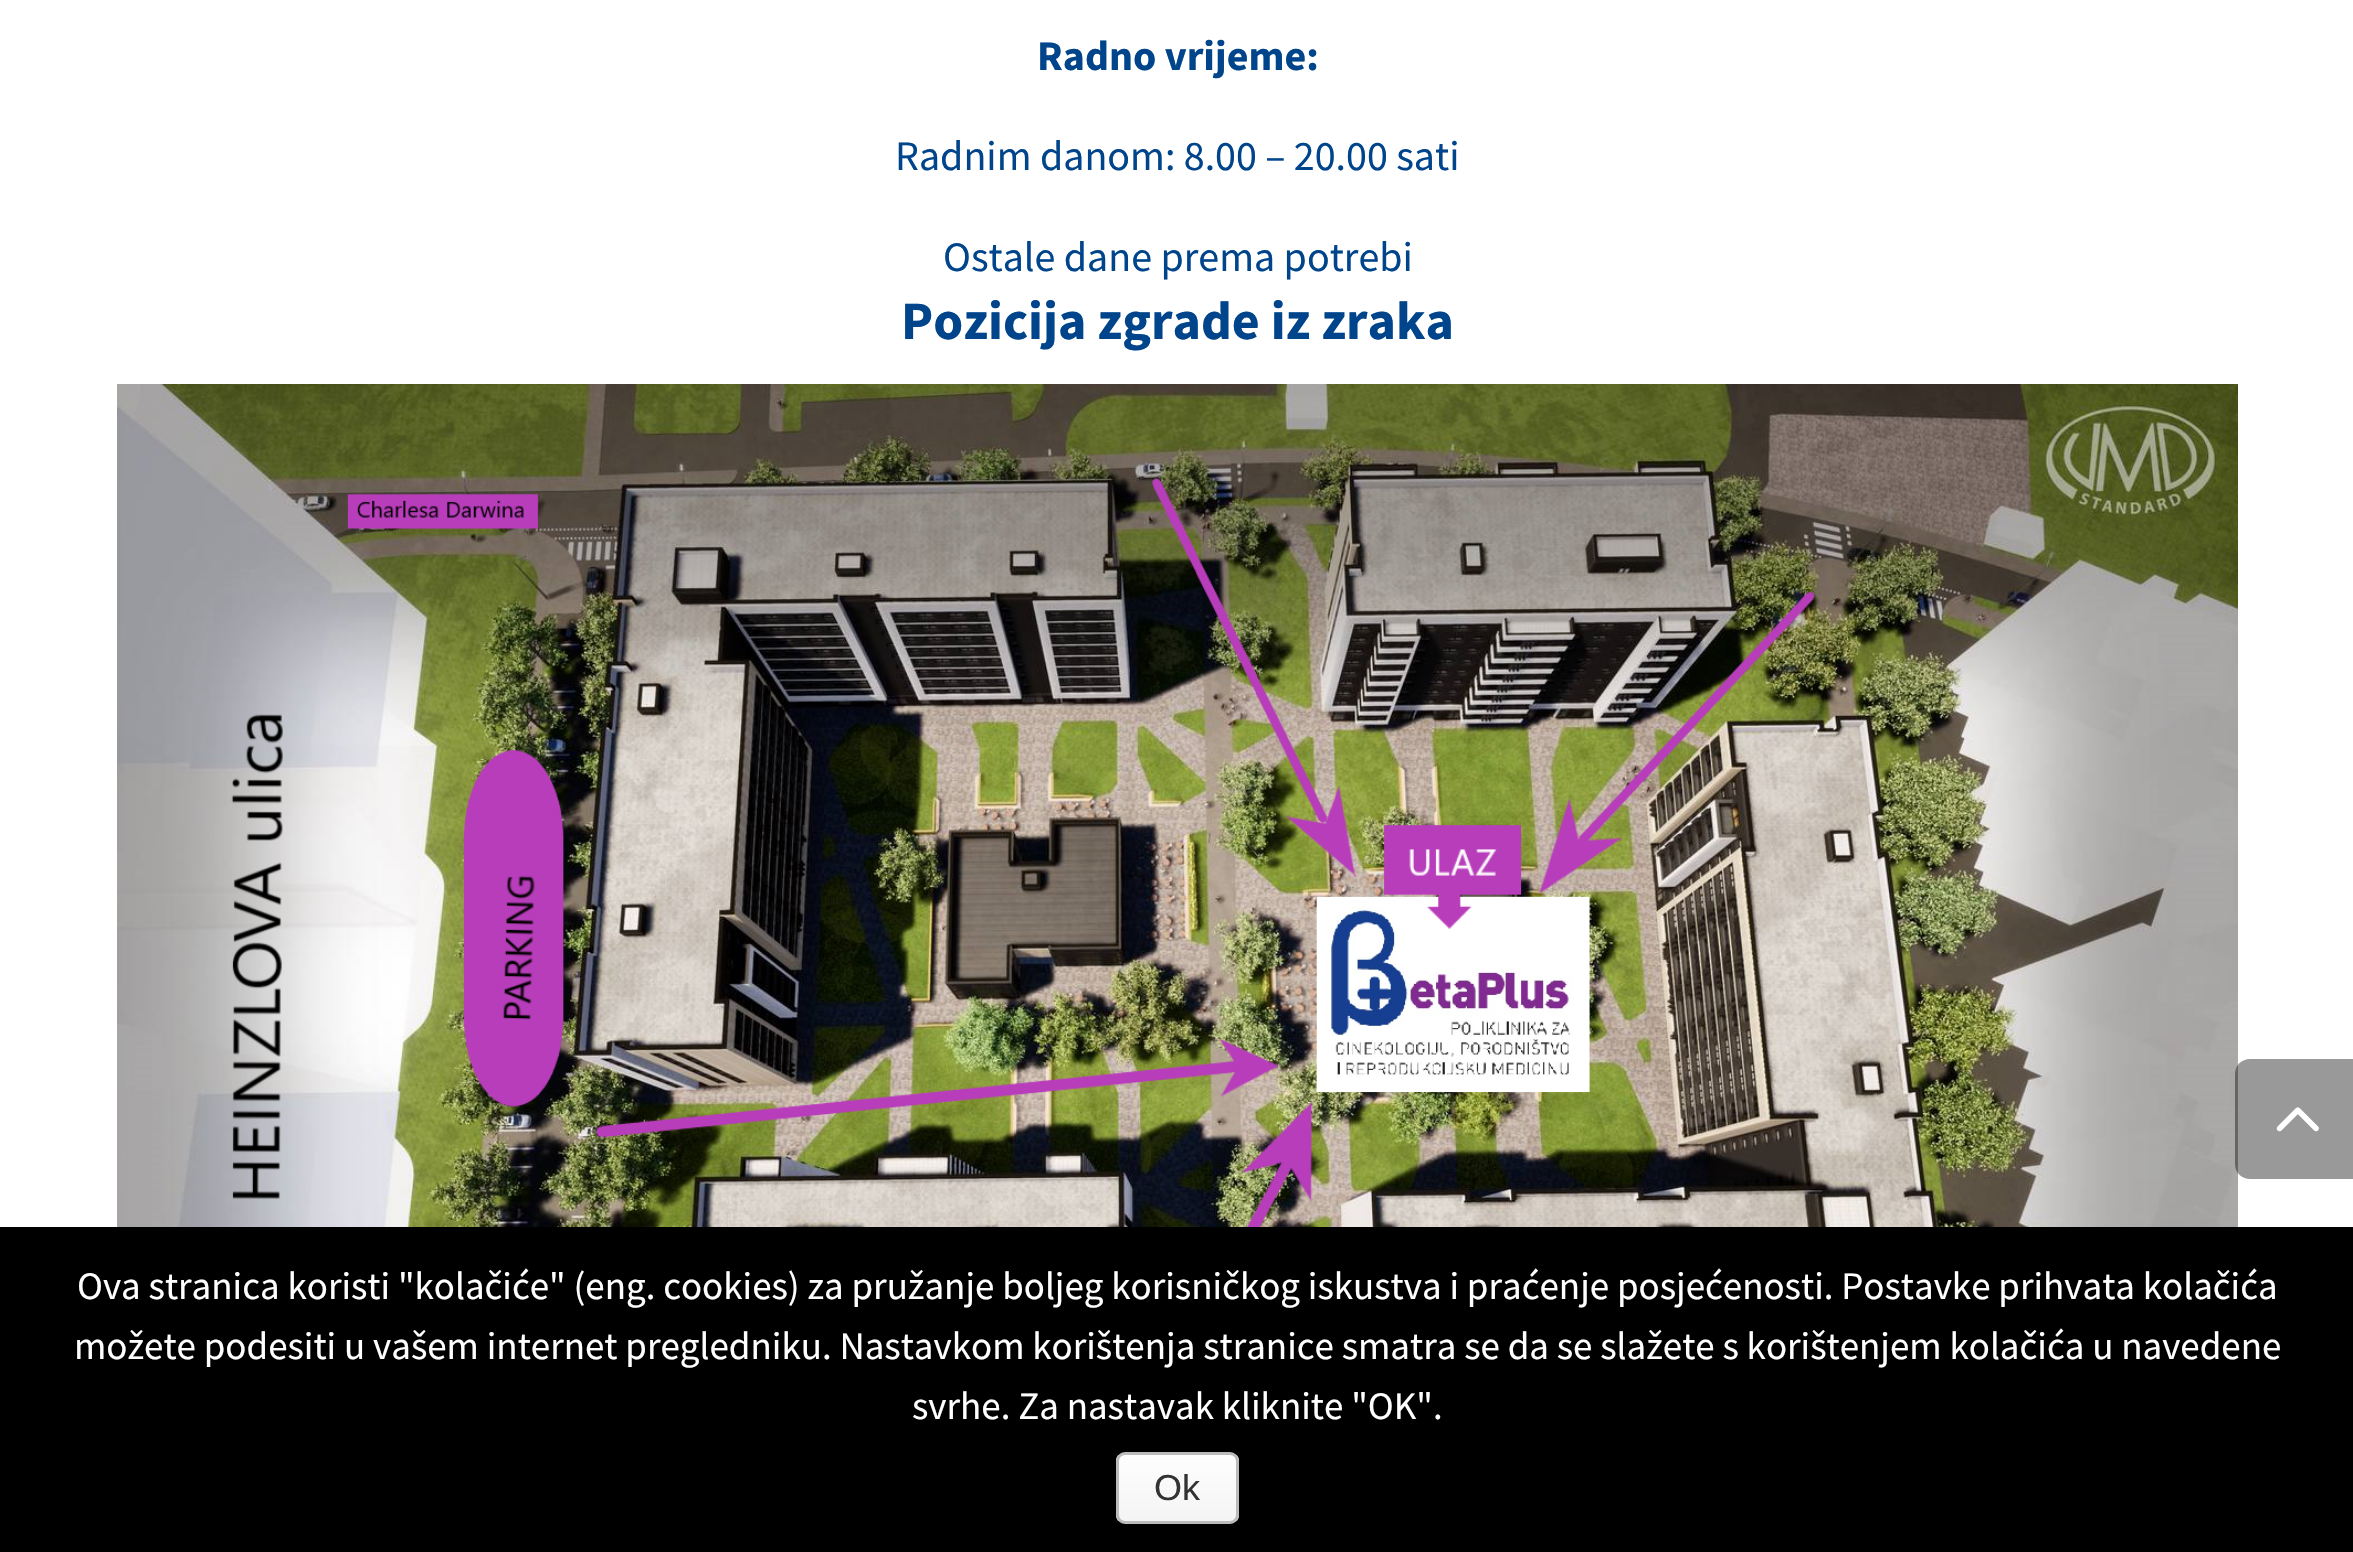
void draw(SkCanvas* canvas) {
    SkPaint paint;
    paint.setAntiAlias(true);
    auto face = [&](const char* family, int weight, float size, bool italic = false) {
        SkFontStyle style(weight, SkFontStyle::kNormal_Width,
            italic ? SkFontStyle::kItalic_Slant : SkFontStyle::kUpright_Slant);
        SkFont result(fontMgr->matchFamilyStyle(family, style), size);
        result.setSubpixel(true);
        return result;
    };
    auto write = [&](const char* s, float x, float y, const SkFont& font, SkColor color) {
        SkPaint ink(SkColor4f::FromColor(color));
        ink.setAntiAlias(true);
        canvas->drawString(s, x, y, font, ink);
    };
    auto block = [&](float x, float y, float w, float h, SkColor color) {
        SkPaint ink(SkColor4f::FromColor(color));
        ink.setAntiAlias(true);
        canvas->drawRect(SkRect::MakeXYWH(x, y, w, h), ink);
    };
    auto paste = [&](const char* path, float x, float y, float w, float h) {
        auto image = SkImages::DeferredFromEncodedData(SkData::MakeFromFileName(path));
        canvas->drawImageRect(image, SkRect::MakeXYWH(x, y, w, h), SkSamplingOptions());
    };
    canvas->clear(SK_ColorWHITE);
    auto kFont1 = face("Source Sans Pro", 700, 42);
    write("Radno vrijeme:", 1037, 70, kFont1, SkColorSetRGB(0, 69, 139));
    auto kFont2 = face("Source Sans Pro", 400, 42);
    write("Radnim danom: 8.00 – 20.00 sati", 895, 170, kFont2, SkColorSetRGB(0, 69, 139));
    write("Ostale dane prema potrebi", 943, 271, kFont2, SkColorSetRGB(0, 69, 139));
    auto kFont3 = face("Source Sans Pro", 700, 54);
    write("Pozicija zgrade iz zraka", 901, 339, kFont3, SkColorSetRGB(0, 69, 139));
    paste("pic1.png", 117, 384, 2121, 843);
    paint.setColor(SkColorSetARGB(102, 0, 0, 0));
    canvas->drawPath(SkPathBuilder().moveTo(2250, 1059).lineTo(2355, 1059).lineTo(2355, 1179).lineTo(2250, 1179).cubicTo(2241.5f, 1179, 2235, 1172.5f, 2235, 1164).lineTo(2235, 1074).cubicTo(2235, 1065.5f, 2241.5f, 1059, 2250, 1059).close().detach(), paint);
    paste("pic2.png", 2276, 1107, 43, 25);
    block(0, 1227, 2353, 325, SK_ColorBLACK);
    auto kFont4 = face("Source Sans Pro", 400, 39);
    write("Ova stranica koristi \"kolačiće\" (eng. cookies) za pružanje boljeg korisničkog iskustva i praćenje posjećenosti. Postavke prihvata kolačića", 77, 1299, kFont4, SK_ColorWHITE);
    write("možete podesiti u vašem internet pregledniku. Nastavkom korištenja stranice smatra se da se slažete s korištenjem kolačića u navedene", 74, 1359, kFont4, SK_ColorWHITE);
    write("svrhe. Za nastavak kliknite \"OK\".", 912, 1419, kFont4, SK_ColorWHITE);
    canvas->save();
    canvas->clipPath(SkPathBuilder().moveTo(1125, 1452).lineTo(1230, 1452).cubicTo(1235, 1452, 1239, 1456, 1239, 1461).lineTo(1239, 1515).cubicTo(1239, 1520, 1235, 1524, 1230, 1524).lineTo(1125, 1524).cubicTo(1120, 1524, 1116, 1520, 1116, 1515).lineTo(1116, 1461).cubicTo(1116, 1456, 1120, 1452, 1125, 1452).close().detach(), true);
    {
        const SkColor colors[] = {SkColorSetRGB(254, 254, 254), SkColorSetRGB(244, 244, 244)};
        const float stops[] = {0, 1};
        const SkPoint ends[] = {{1178, 1455}, {1178, 1521}};
        paint.setShader(SkGradientShader::MakeLinear(ends, colors, stops, 2, SkTileMode::kClamp));
        paint.setAlpha(255);
    }
    canvas->drawRect(SkRect::MakeXYWH(1116, 1455, 123, 66), paint);
    canvas->restore();
    paint.setStyle(SkPaint::kStroke_Style);
    paint.setStrokeWidth(3);
    paint.setShader(nullptr);
    paint.setColor(SkColorSetRGB(187, 187, 187));
    canvas->drawRoundRect(SkRect::MakeXYWH(1117.5f, 1453.5f, 120, 69), 7.5f, 7.5f, paint);
    auto kFont5 = face("Liberation Sans", 400, 36);
    write("Ok", 1154, 1500, kFont5, SkColorSetRGB(51, 51, 51));
}
